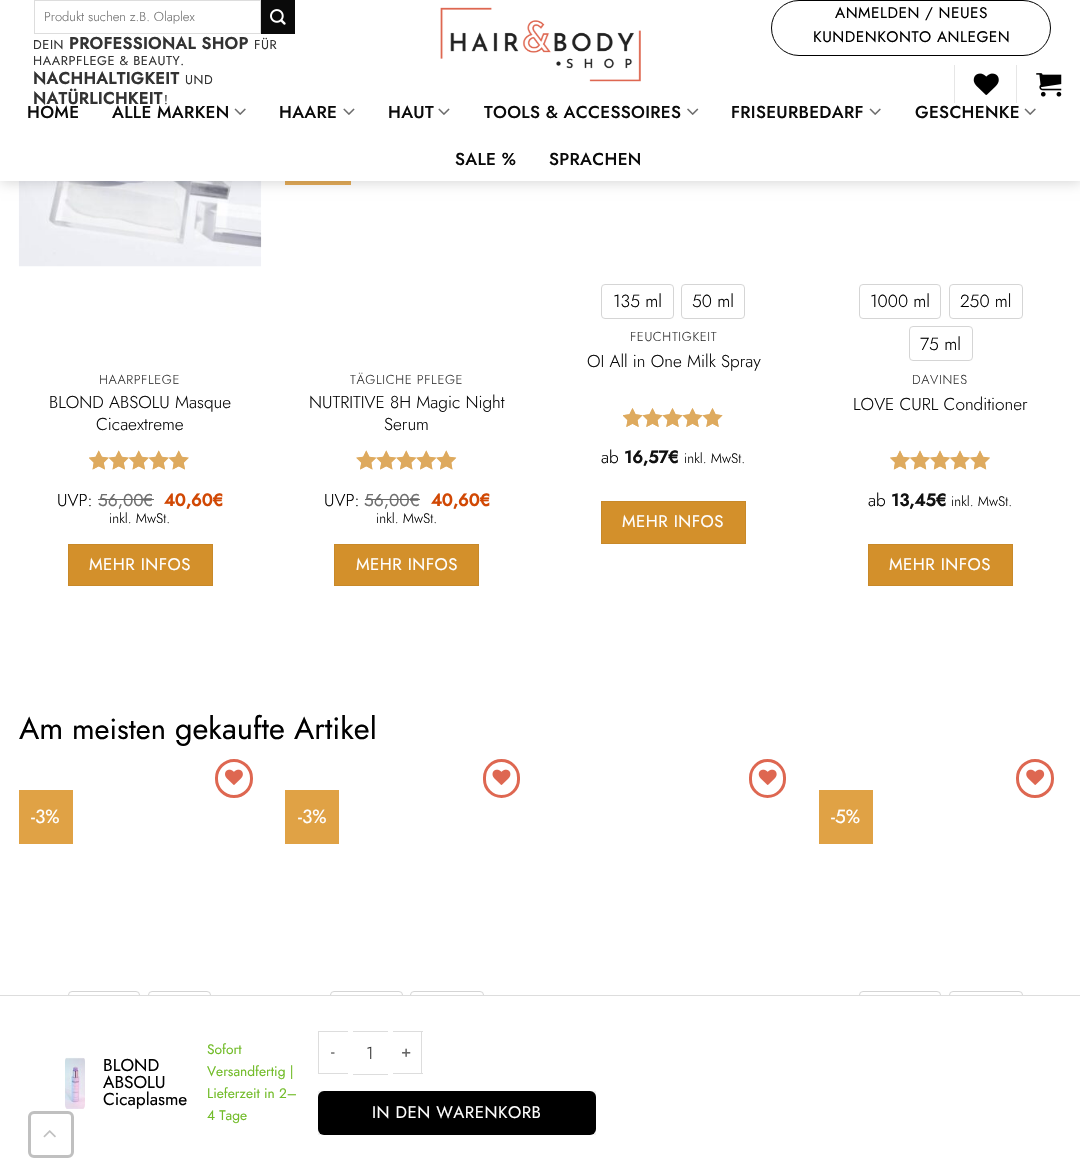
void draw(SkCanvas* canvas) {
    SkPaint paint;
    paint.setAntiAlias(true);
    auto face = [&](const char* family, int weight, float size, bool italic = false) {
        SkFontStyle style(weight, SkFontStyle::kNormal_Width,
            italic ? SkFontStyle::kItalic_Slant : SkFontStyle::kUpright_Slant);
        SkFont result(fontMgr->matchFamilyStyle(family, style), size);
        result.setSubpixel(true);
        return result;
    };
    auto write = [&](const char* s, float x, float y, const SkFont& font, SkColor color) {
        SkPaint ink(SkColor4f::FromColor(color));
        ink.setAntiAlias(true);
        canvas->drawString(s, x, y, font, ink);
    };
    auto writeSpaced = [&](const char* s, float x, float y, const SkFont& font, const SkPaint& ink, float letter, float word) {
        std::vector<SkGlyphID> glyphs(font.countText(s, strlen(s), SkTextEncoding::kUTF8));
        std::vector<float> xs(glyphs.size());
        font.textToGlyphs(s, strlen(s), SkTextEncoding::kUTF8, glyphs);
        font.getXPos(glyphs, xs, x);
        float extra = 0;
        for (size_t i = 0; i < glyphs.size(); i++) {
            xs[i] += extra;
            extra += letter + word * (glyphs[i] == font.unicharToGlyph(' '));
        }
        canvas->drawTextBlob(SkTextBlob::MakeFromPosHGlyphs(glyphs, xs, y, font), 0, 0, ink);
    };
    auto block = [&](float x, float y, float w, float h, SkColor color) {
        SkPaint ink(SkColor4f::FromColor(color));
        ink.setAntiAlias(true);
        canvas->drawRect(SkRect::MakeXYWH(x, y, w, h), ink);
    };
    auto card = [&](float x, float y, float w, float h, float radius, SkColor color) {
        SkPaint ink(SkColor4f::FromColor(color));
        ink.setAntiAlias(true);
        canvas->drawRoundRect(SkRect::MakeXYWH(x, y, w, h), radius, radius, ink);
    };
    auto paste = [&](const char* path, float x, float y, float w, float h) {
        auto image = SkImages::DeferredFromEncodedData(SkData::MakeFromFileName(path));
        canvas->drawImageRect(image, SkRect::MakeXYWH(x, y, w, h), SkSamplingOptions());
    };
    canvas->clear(SK_ColorWHITE);
    paste("pic8.png", 18, 181, 244, 86);
    block(285, 181, 66, 4, SkColorSetRGB(227, 171, 88));
    paint.setColor(SkColorSetARGB(38, 0, 0, 0));
    paint.setMaskFilter(SkMaskFilter::MakeBlur(kNormal_SkBlurStyle, 6));
    canvas->drawRect(SkRect::MakeXYWH(1, 1, 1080, 182), paint);
    paint.setMaskFilter(nullptr);
    block(0, 0, 1080, 181, SK_ColorWHITE);
    paint.setStyle(SkPaint::kStroke_Style);
    paint.setStrokeWidth(1);
    paint.setColor(SkColorSetRGB(221, 221, 221));
    canvas->drawRect(SkRect::MakeXYWH(34.5f, 0.5f, 226, 33), paint);
    auto kFont1 = face("Jost", 300, 13);
    write("Produkt suchen z.B. Olaplex", 44, 21, kFont1, SkColorSetRGB(112, 112, 112));
    block(261, 0, 34, 34, SkColorSetRGB(10, 10, 10));
    paste("pic1.png", 270, 9, 16, 16);
    auto kFont2 = face("Jost", 400, 12.75f);
    paint.setStyle(SkPaint::kFill_Style);
    paint.setColor(SkColorSetRGB(51, 51, 51));
    writeSpaced("DEIN", 33, 49, kFont2, paint, 0.6f, 0);
    auto kFont3 = face("Jost", 700, 16.5f);
    writeSpaced("PROFESSIONAL SHOP", 69, 49, kFont3, paint, 0.6f, 0);
    writeSpaced("FÜR", 254, 49, kFont2, paint, 0.6f, 0);
    writeSpaced("HAARPFLEGE & BEAUTY.", 33, 65, kFont2, paint, 0.6f, 0);
    writeSpaced("NACHHALTIGKEIT", 33, 84, kFont3, paint, 0.6f, 0);
    writeSpaced("UND", 185, 84, kFont2, paint, 0.6f, 0);
    writeSpaced("NATÜRLICHKEIT", 33, 104, kFont3, paint, 0.6f, 0);
    writeSpaced("!", 164, 104, kFont2, paint, 0.6f, 0);
    paste("pic2.png", 440, 7, 201, 75);
    paint.setStyle(SkPaint::kStroke_Style);
    paint.setColor(SK_ColorBLACK);
    canvas->drawRoundRect(SkRect::MakeXYWH(771.5f, 0.5f, 279, 55), 27.5f, 27.5f, paint);
    auto kFont4 = face("Jost", 400, 15.4f);
    paint.setStyle(SkPaint::kFill_Style);
    writeSpaced("ANMELDEN / NEUES", 835, 18, kFont4, paint, 0.5f, 0);
    writeSpaced("KUNDENKONTO ANLEGEN", 813, 42, kFont4, paint, 0.5f, 0);
    block(954, 65, 1, 38, SkColorSetRGB(230, 230, 230));
    paste("pic3.png", 973, 73, 26, 22);
    block(1016, 65, 1, 38, SkColorSetRGB(230, 230, 230));
    paste("pic4.png", 1036, 73, 26, 24);
    auto kFont5 = face("Jost", 500, 17.25f);
    paint.setColor(SkColorSetRGB(10, 10, 10));
    writeSpaced("HOME", 27, 118, kFont5, paint, 0.3f, 0);
    writeSpaced("ALLE MARKEN", 112, 118, kFont5, paint, 0.3f, 0);
    paste("pic5.png", 234, 108, 12, 7);
    writeSpaced("HAARE", 279, 118, kFont5, paint, 0.3f, 0);
    paste("pic6.png", 343, 108, 12, 7);
    writeSpaced("HAUT", 388, 118, kFont5, paint, 0.3f, 0);
    paste("pic6.png", 438, 108, 12, 7);
    writeSpaced("TOOLS & ACCESSOIRES", 484, 118, kFont5, paint, 0.3f, 0);
    paste("pic7.png", 687, 108, 12, 7);
    writeSpaced("FRISEURBEDARF", 731, 118, kFont5, paint, 0.3f, 0);
    paste("pic5.png", 869, 108, 12, 7);
    writeSpaced("GESCHENKE", 915, 118, kFont5, paint, 0.3f, 0);
    paste("pic5.png", 1024, 108, 12, 7);
    writeSpaced("SALE %", 455, 165, kFont5, paint, 0.3f, 0);
    writeSpaced("SPRACHEN", 549, 165, kFont5, paint, 0.3f, 0);
    paint.setColor(SkColorSetRGB(51, 51, 51));
    writeSpaced("HAARPFLEGE", 99, 384, kFont1, paint, 0.6f, 0);
    auto kFont6 = face("Jost", 300, 17.25f);
    write("BLOND ABSOLU Masque", 49, 408, kFont6, SkColorSetRGB(10, 10, 10));
    write("Cicaextreme", 96, 430, kFont6, SkColorSetRGB(10, 10, 10));
    paste("pic9.png", 89, 450, 100, 20);
    paste("pic10.png", 89, 450, 100, 20);
    write("UVP:", 57, 506, kFont6, SK_ColorBLACK);
    auto kFont7 = face("Jost", 400, 17.25f);
    write("56,00", 98, 506, kFont7, SkColorSetRGB(112, 112, 112));
    block(98, 499, 46, 1, SkColorSetRGB(102, 102, 102));
    write("€", 143, 506, kFont7, SkColorSetRGB(112, 112, 112));
    block(144, 499, 10, 1, SkColorSetRGB(102, 102, 102));
    auto kFont8 = face("Jost", 700, 17.25f);
    write("40,60€", 164, 506, kFont8, SkColorSetRGB(209, 72, 4));
    auto kFont9 = face("Jost", 300, 13.75f);
    write("inkl. MwSt.", 109, 523, kFont9, SK_ColorBLACK);
    paint.setColor(SkColorSetRGB(211, 144, 43));
    canvas->drawRect(SkRect::MakeXYWH(68.5f, 544.5f, 144, 41), paint);
    paint.setStyle(SkPaint::kStroke_Style);
    paint.setColor(SkColorSetRGB(200, 137, 41));
    canvas->drawRect(SkRect::MakeXYWH(68.5f, 544.5f, 144, 41), paint);
    auto kFont10 = face("Jost", 400, 16.75f);
    paint.setStyle(SkPaint::kFill_Style);
    paint.setColor(SK_ColorWHITE);
    writeSpaced("MEHR INFOS", 89, 570, kFont10, paint, 0.5f, 0);
    paint.setColor(SkColorSetRGB(51, 51, 51));
    writeSpaced("TÄGLICHE PFLEGE", 350, 384, kFont1, paint, 0.6f, 0);
    write("NUTRITIVE 8H Magic Night", 309, 408, kFont6, SkColorSetRGB(10, 10, 10));
    write("Serum", 384, 430, kFont6, SkColorSetRGB(10, 10, 10));
    paste("pic11.png", 356, 450, 101, 20);
    paste("pic12.png", 356, 450, 101, 20);
    write("UVP:", 324, 506, kFont6, SK_ColorBLACK);
    write("56,00€", 364, 506, kFont7, SkColorSetRGB(112, 112, 112));
    block(365, 499, 55, 1, SkColorSetRGB(102, 102, 102));
    write("40,60€", 431, 506, kFont8, SkColorSetRGB(209, 72, 4));
    write("inkl. MwSt.", 376, 523, kFont9, SK_ColorBLACK);
    paint.setColor(SkColorSetRGB(211, 144, 43));
    canvas->drawRect(SkRect::MakeXYWH(334.5f, 544.5f, 144, 41), paint);
    paint.setStyle(SkPaint::kStroke_Style);
    paint.setColor(SkColorSetRGB(200, 137, 41));
    canvas->drawRect(SkRect::MakeXYWH(334.5f, 544.5f, 144, 41), paint);
    paint.setStyle(SkPaint::kFill_Style);
    paint.setColor(SK_ColorWHITE);
    writeSpaced("MEHR INFOS", 356, 570, kFont10, paint, 0.5f, 0);
    paint.setStyle(SkPaint::kStroke_Style);
    paint.setColor(SkColorSetRGB(213, 213, 213));
    canvas->drawRoundRect(SkRect::MakeXYWH(601.5f, 284.5f, 72, 34), 3.5f, 3.5f, paint);
    auto kFont11 = face("Jost", 300, 17.5f);
    write("135 ml", 613, 307, kFont11, SK_ColorBLACK);
    canvas->drawRoundRect(SkRect::MakeXYWH(681.5f, 284.5f, 63, 34), 3.5f, 3.5f, paint);
    write("50 ml", 692, 307, kFont11, SK_ColorBLACK);
    paint.setStyle(SkPaint::kFill_Style);
    paint.setColor(SkColorSetRGB(51, 51, 51));
    writeSpaced("FEUCHTIGKEIT", 630, 341, kFont1, paint, 0.6f, 0);
    write("OI All in One Milk Spray", 587, 367, kFont6, SkColorSetRGB(10, 10, 10));
    paste("pic13.png", 623, 408, 100, 19);
    paste("pic14.png", 623, 408, 100, 19);
    write("ab", 601, 463, kFont6, SK_ColorBLACK);
    write("16,57€", 624, 463, kFont8, SkColorSetRGB(17, 17, 17));
    write("inkl. MwSt.", 684, 463, kFont9, SK_ColorBLACK);
    paint.setColor(SkColorSetRGB(211, 144, 43));
    canvas->drawRect(SkRect::MakeXYWH(601.5f, 501.5f, 144, 42), paint);
    paint.setStyle(SkPaint::kStroke_Style);
    paint.setColor(SkColorSetRGB(200, 137, 41));
    canvas->drawRect(SkRect::MakeXYWH(601.5f, 501.5f, 144, 42), paint);
    paint.setStyle(SkPaint::kFill_Style);
    paint.setColor(SK_ColorWHITE);
    writeSpaced("MEHR INFOS", 622, 527, kFont10, paint, 0.5f, 0);
    paint.setStyle(SkPaint::kStroke_Style);
    paint.setColor(SkColorSetRGB(213, 213, 213));
    canvas->drawRoundRect(SkRect::MakeXYWH(859.5f, 284.5f, 81, 34), 3.5f, 3.5f, paint);
    write("1000 ml", 870, 307, kFont11, SK_ColorBLACK);
    canvas->drawRoundRect(SkRect::MakeXYWH(949.5f, 284.5f, 73, 34), 3.5f, 3.5f, paint);
    write("250 ml", 960, 307, kFont11, SK_ColorBLACK);
    canvas->drawRoundRect(SkRect::MakeXYWH(909.5f, 326.5f, 63, 34), 3.5f, 3.5f, paint);
    write("75 ml", 920, 350, kFont11, SK_ColorBLACK);
    paint.setStyle(SkPaint::kFill_Style);
    paint.setColor(SkColorSetRGB(51, 51, 51));
    writeSpaced("DAVINES", 912, 384, kFont1, paint, 0.6f, 0);
    write("LOVE CURL Conditioner", 853, 410, kFont6, SkColorSetRGB(10, 10, 10));
    paste("pic15.png", 890, 450, 100, 20);
    paste("pic16.png", 890, 450, 100, 20);
    write("ab", 868, 506, kFont6, SK_ColorBLACK);
    write("13,45€", 891, 506, kFont8, SkColorSetRGB(17, 17, 17));
    write("inkl. MwSt.", 951, 506, kFont9, SK_ColorBLACK);
    paint.setColor(SkColorSetRGB(211, 144, 43));
    canvas->drawRect(SkRect::MakeXYWH(868.5f, 544.5f, 144, 41), paint);
    paint.setStyle(SkPaint::kStroke_Style);
    paint.setColor(SkColorSetRGB(200, 137, 41));
    canvas->drawRect(SkRect::MakeXYWH(868.5f, 544.5f, 144, 41), paint);
    paint.setStyle(SkPaint::kFill_Style);
    paint.setColor(SK_ColorWHITE);
    writeSpaced("MEHR INFOS", 889, 570, kFont10, paint, 0.5f, 0);
    auto kFont12 = face("Jost", 400, 30.75f);
    write("Am", 19, 739, kFont12, SK_ColorBLACK);
    auto kFont13 = face("Jost", 400, 29);
    write("meisten", 72, 739, kFont13, SK_ColorBLACK);
    write("gekaufte Artikel", 175, 739, kFont12, SK_ColorBLACK);
    paint.setStyle(SkPaint::kStroke_Style);
    paint.setStrokeWidth(3);
    paint.setColor(SkColorSetRGB(222, 103, 81));
    canvas->drawRoundRect(SkRect::MakeXYWH(750.5f, 760.5f, 34, 36), 17, 17, paint);
    paste("pic17.png", 758, 769, 19, 16);
    block(19, 790, 54, 54, SkColorSetRGB(224, 162, 69));
    auto kFont14 = face("Jost", 400, 19);
    write("-3%", 31, 823, kFont14, SK_ColorWHITE);
    canvas->drawRoundRect(SkRect::MakeXYWH(216.5f, 760.5f, 35, 36), 17.5f, 17.5f, paint);
    paste("pic18.png", 225, 769, 18, 16);
    paint.setStrokeWidth(1);
    paint.setColor(SkColorSetRGB(213, 213, 213));
    canvas->drawRoundRect(SkRect::MakeXYWH(68.5f, 991.5f, 71, 34), 3.5f, 3.5f, paint);
    canvas->drawRoundRect(SkRect::MakeXYWH(148.5f, 991.5f, 62, 34), 3.5f, 3.5f, paint);
    block(285, 790, 54, 54, SkColorSetRGB(224, 162, 69));
    write("-3%", 298, 823, kFont14, SK_ColorWHITE);
    paint.setStrokeWidth(3);
    paint.setColor(SkColorSetRGB(222, 103, 81));
    canvas->drawRoundRect(SkRect::MakeXYWH(484.5f, 760.5f, 34, 36), 17, 17, paint);
    paste("pic19.png", 492, 769, 19, 16);
    paint.setStrokeWidth(1);
    paint.setColor(SkColorSetRGB(213, 213, 213));
    canvas->drawRoundRect(SkRect::MakeXYWH(330.5f, 991.5f, 72, 34), 3.5f, 3.5f, paint);
    canvas->drawRoundRect(SkRect::MakeXYWH(410.5f, 991.5f, 73, 34), 3.5f, 3.5f, paint);
    block(819, 790, 54, 54, SkColorSetRGB(224, 162, 69));
    write("-5%", 831, 823, kFont14, SK_ColorWHITE);
    paint.setStrokeWidth(3);
    paint.setColor(SkColorSetRGB(222, 103, 81));
    canvas->drawRoundRect(SkRect::MakeXYWH(1017.5f, 760.5f, 35, 36), 17.5f, 17.5f, paint);
    paste("pic20.png", 1026, 769, 19, 16);
    paint.setStrokeWidth(1);
    paint.setColor(SkColorSetRGB(213, 213, 213));
    canvas->drawRoundRect(SkRect::MakeXYWH(859.5f, 991.5f, 81, 34), 3.5f, 3.5f, paint);
    canvas->drawRoundRect(SkRect::MakeXYWH(949.5f, 991.5f, 73, 34), 3.5f, 3.5f, paint);
    paint.setStrokeWidth(3);
    paint.setColor(SkColorSetRGB(192, 192, 192));
    canvas->drawRoundRect(SkRect::MakeXYWH(29.5f, 1112.5f, 43, 44), 4.5f, 4.5f, paint);
    paste("pic21.png", 43, 1130, 13, 8);
    block(68, 996, 955, 30, SK_ColorWHITE);
    block(0, 995, 1080, 1, SkColorSetRGB(221, 221, 221));
    paste("pic22.png", 65, 1057, 20, 52);
    write("BLOND", 103, 1071, kFont7, SK_ColorBLACK);
    write("ABSOLU", 103, 1088, kFont7, SK_ColorBLACK);
    write("Cicaplasme", 103, 1105, kFont7, SK_ColorBLACK);
    auto kFont15 = face("Jost", 400, 13.75f);
    write("Sofort", 207, 1054, kFont15, SkColorSetRGB(114, 188, 41));
    write("Versandfertig |", 207, 1076, kFont15, SkColorSetRGB(114, 188, 41));
    write("Lieferzeit in 2–", 207, 1098, kFont15, SkColorSetRGB(114, 188, 41));
    write("4 Tage", 207, 1120, kFont15, SkColorSetRGB(114, 188, 41));
    block(318, 1031, 30, 1, SkColorSetRGB(221, 221, 221));
    block(318, 1073, 30, 1, SkColorSetRGB(221, 221, 221));
    block(318, 1031, 1, 43, SkColorSetRGB(221, 221, 221));
    paint.setStyle(SkPaint::kFill_Style);
    paint.setColor(SkColorSetRGB(102, 102, 102));
    writeSpaced("-", 331, 1057, kFont10, paint, 0.5f, 0);
    block(353, 1031, 35, 1, SkColorSetRGB(221, 221, 221));
    block(353, 1074, 35, 1, SkColorSetRGB(221, 221, 221));
    write("1", 366, 1059, kFont6, SkColorSetRGB(51, 51, 51));
    block(393, 1031, 30, 1, SkColorSetRGB(221, 221, 221));
    block(421, 1031, 1, 43, SkColorSetRGB(221, 221, 221));
    block(393, 1073, 30, 1, SkColorSetRGB(221, 221, 221));
    writeSpaced("+", 401, 1057, kFont10, paint, 0.5f, 0);
    card(318, 1091, 278, 44, 6, SK_ColorBLACK);
    paint.setStyle(SkPaint::kStroke_Style);
    paint.setStrokeWidth(1);
    paint.setColor(SkColorSetARGB(13, 0, 0, 0));
    canvas->drawRect(SkRect::MakeXYWH(318.5f, 1091.5f, 277, 43), paint);
    paint.setStyle(SkPaint::kFill_Style);
    paint.setColor(SK_ColorWHITE);
    writeSpaced("IN DEN WARENKORB", 372, 1118, kFont10, paint, 0.5f, 0);
}
